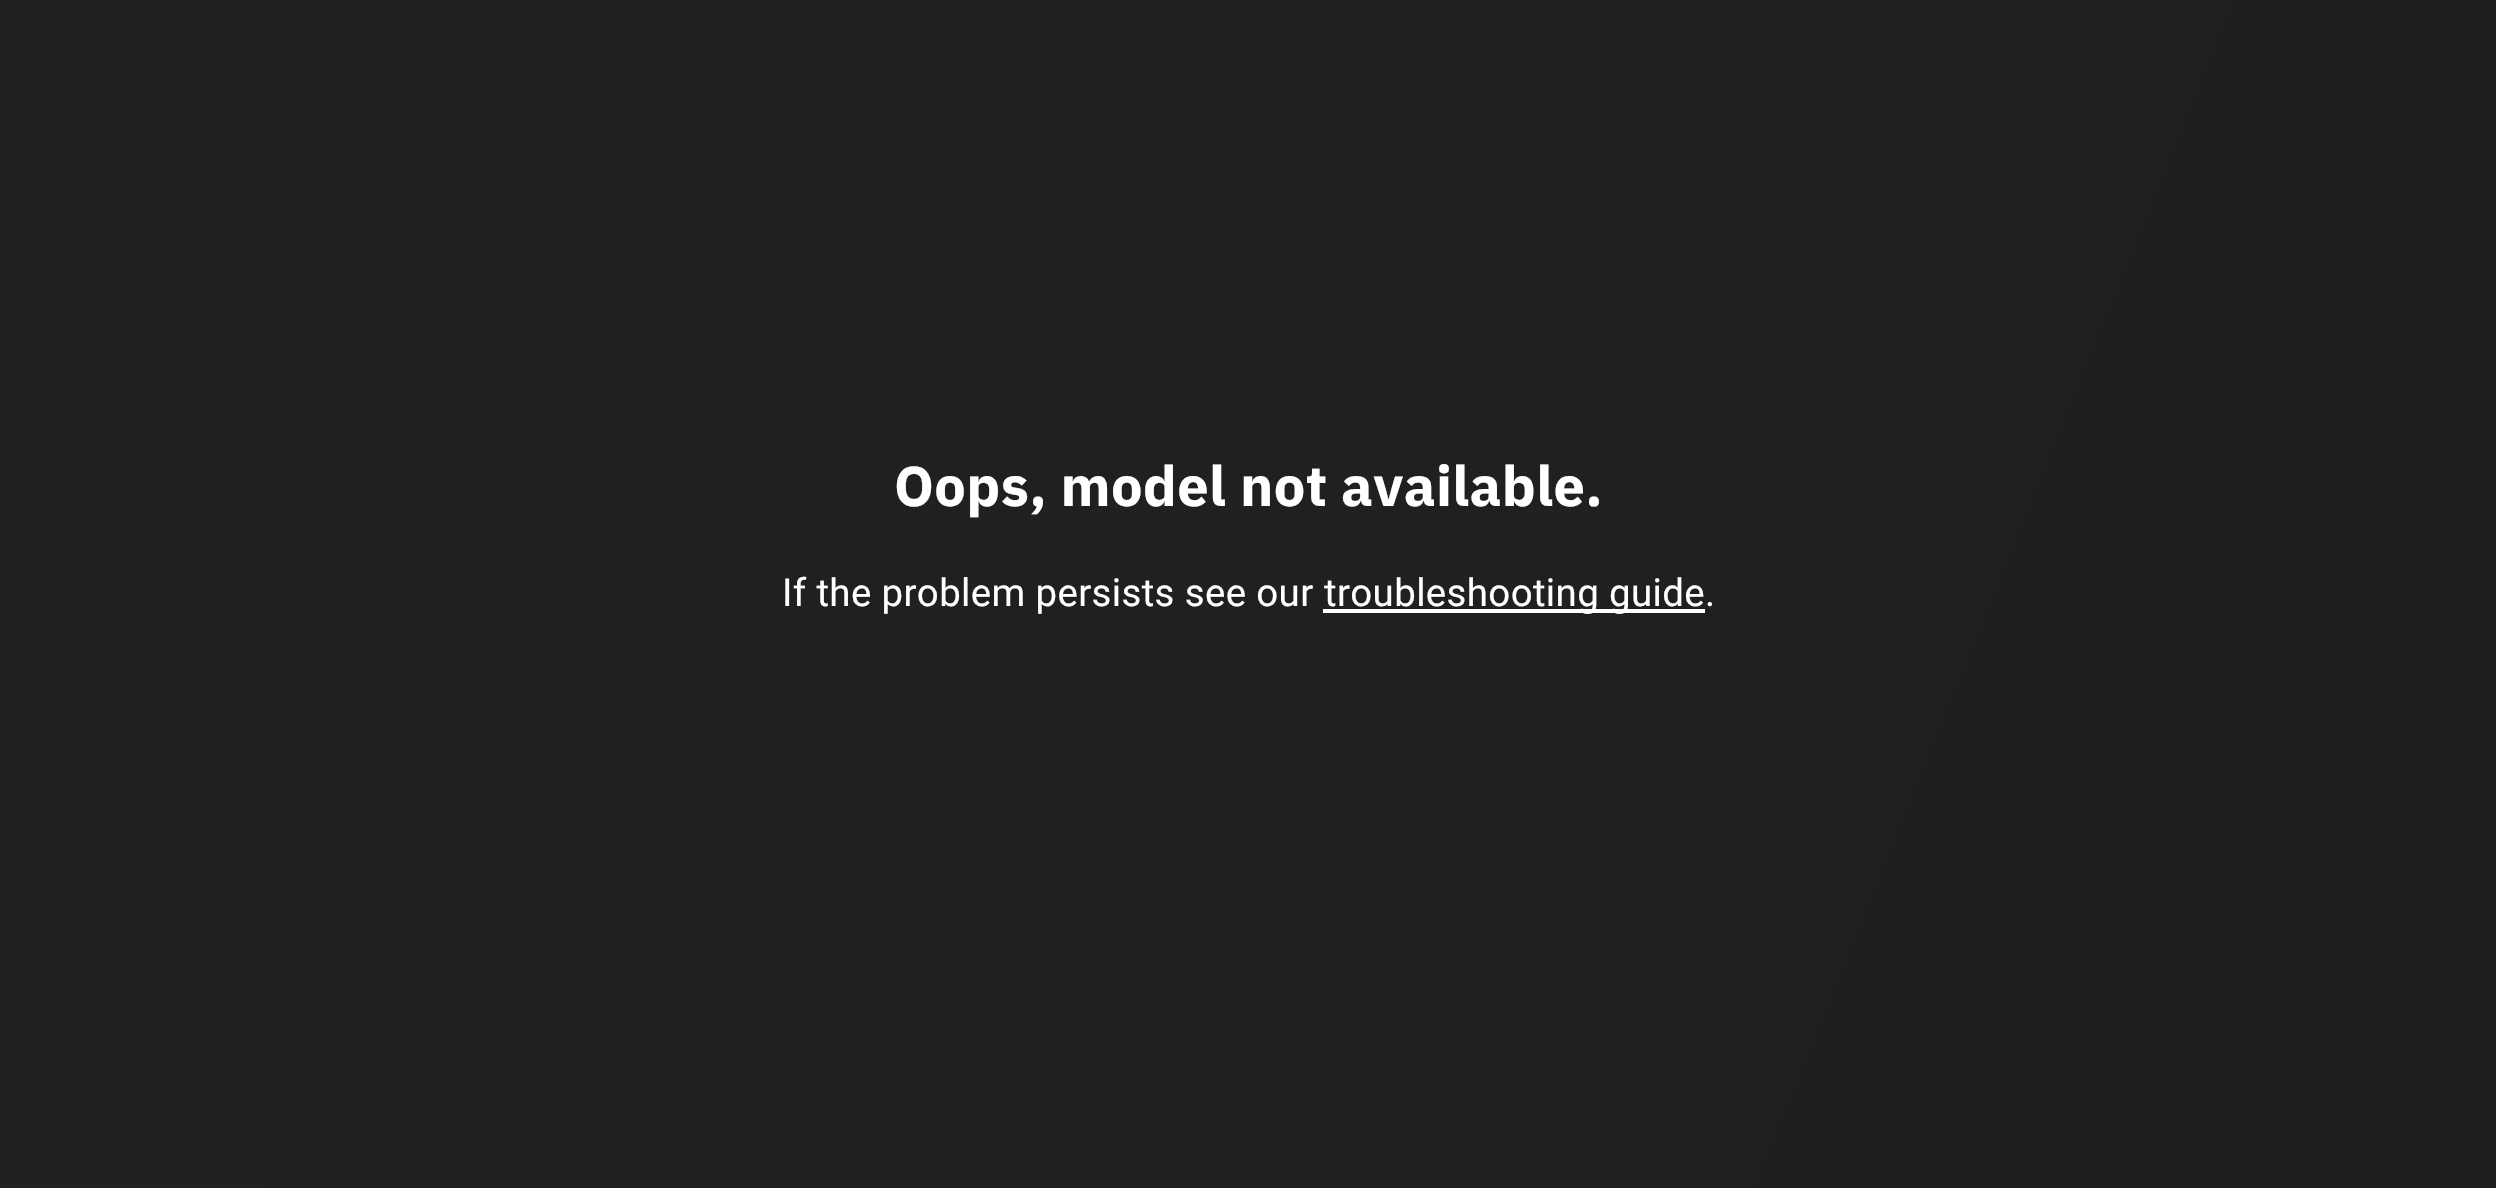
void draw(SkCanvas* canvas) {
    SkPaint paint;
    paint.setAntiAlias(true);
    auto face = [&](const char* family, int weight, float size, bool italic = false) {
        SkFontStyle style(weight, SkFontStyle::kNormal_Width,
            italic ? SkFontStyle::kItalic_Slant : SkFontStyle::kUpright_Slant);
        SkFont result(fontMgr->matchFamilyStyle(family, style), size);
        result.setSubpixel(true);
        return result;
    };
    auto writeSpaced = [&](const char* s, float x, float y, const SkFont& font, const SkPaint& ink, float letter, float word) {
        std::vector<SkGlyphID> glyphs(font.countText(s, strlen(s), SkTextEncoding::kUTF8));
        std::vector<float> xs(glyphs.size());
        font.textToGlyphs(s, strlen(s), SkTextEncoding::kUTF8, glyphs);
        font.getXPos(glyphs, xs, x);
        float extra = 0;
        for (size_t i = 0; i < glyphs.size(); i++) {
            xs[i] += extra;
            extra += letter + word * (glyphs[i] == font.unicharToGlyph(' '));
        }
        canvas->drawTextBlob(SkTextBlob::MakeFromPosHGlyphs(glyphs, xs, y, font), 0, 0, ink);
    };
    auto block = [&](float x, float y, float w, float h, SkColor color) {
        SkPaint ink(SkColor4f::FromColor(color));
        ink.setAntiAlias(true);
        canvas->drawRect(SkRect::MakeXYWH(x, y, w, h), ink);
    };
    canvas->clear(SK_ColorWHITE);
    {
        const SkColor colors[] = {SkColorSetRGB(33, 33, 33), SkColorSetRGB(31, 31, 31)};
        const float stops[] = {0, 1};
        const SkPoint ends[] = {{-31, 77}, {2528, 1111}};
        paint.setShader(SkGradientShader::MakeLinear(ends, colors, stops, 2, SkTileMode::kClamp));
        paint.setAlpha(255);
    }
    canvas->drawRect(SkRect::MakeXYWH(0, 0, 2496, 1188), paint);
    auto kFont1 = face("IBM Plex Sans", 700, 56);
    paint.setShader(nullptr);
    paint.setColor(SK_ColorWHITE);
    writeSpaced("Oops, model not available.", 894, 506, kFont1, paint, 0.35f, 0);
    auto kFont2 = face("Roboto", 400, 38.5f);
    writeSpaced("If the problem persists see our", 782, 606, kFont2, paint, 0.35f, 0);
    block(1323, 609, 382, 4, SK_ColorWHITE);
    writeSpaced("troubleshooting guide.", 1324, 606, kFont2, paint, 0.35f, 0);
}
